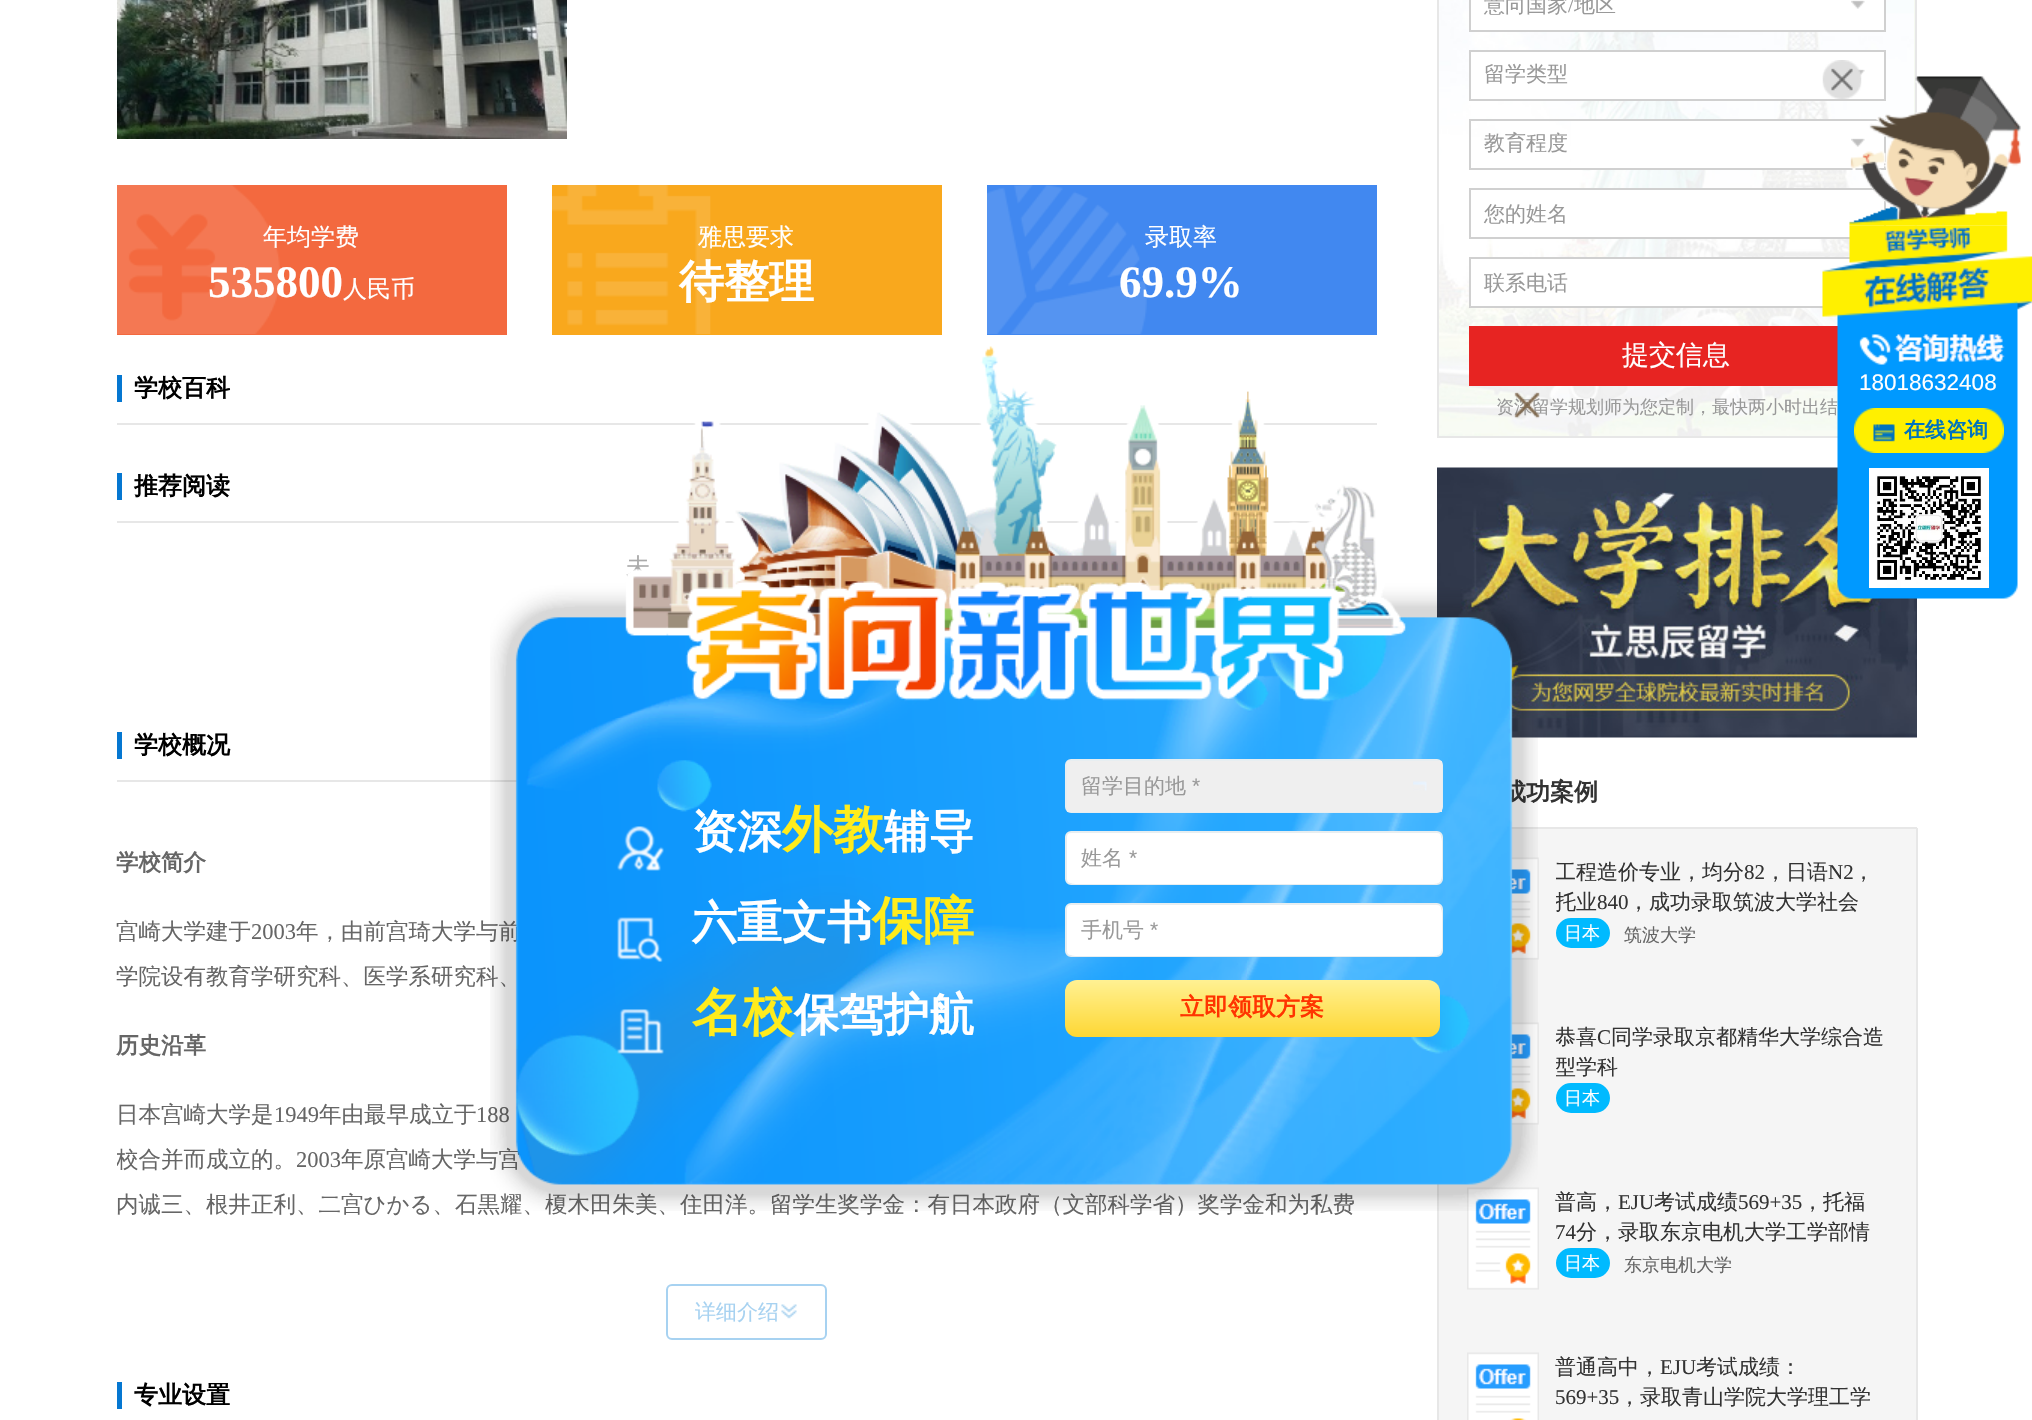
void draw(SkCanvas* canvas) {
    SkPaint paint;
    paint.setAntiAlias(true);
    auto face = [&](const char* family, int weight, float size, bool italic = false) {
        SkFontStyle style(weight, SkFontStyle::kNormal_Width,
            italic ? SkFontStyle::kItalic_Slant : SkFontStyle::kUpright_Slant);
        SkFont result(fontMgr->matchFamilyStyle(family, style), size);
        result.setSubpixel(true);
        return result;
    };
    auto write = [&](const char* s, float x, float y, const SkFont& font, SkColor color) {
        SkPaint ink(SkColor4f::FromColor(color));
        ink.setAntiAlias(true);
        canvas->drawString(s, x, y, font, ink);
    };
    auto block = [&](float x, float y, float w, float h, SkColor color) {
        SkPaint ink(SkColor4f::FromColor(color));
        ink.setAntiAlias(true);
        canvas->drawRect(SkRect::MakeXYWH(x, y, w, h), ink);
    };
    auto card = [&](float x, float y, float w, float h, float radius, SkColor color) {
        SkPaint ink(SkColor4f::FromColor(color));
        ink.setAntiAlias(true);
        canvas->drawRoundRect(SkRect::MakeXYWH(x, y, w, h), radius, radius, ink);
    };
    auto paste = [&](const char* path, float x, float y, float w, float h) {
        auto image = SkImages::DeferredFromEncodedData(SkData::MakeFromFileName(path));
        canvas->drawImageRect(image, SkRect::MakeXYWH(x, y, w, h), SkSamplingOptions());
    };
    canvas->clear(SK_ColorWHITE);
    paste("pic1.png", 117, 0, 450, 139);
    block(117, 185, 390, 150, SkColorSetRGB(243, 105, 63));
    paste("pic2.png", 117, 185, 163, 149);
    auto kFont1 = face("WenQuanYi Zen Hei", 500, 24);
    write("年均学费", 263, 245, kFont1, SK_ColorWHITE);
    auto kFont2 = face("Liberation Serif", 700, 45);
    write("535800", 208, 297, kFont2, SK_ColorWHITE);
    write("人民币", 343, 297, kFont1, SK_ColorWHITE);
    block(552, 185, 390, 150, SkColorSetRGB(249, 168, 29));
    paste("pic3.png", 552, 185, 159, 149);
    write("雅思要求", 698, 245, kFont1, SK_ColorWHITE);
    auto kFont3 = face("WenQuanYi Zen Hei", 700, 45);
    write("待整理", 679, 297, kFont3, SK_ColorWHITE);
    block(987, 185, 390, 150, SkColorSetRGB(65, 136, 240));
    paste("pic4.png", 987, 185, 160, 149);
    write("录取率", 1145, 245, kFont1, SK_ColorWHITE);
    write("69.9%", 1119, 297, kFont2, SK_ColorWHITE);
    block(117, 423, 1260, 2, SkColorSetRGB(231, 231, 231));
    block(117, 375, 5, 27, SkColorSetRGB(5, 119, 209));
    auto kFont4 = face("WenQuanYi Zen Hei", 700, 24);
    write("学校百科", 134, 396, kFont4, SK_ColorBLACK);
    block(117, 521, 1197, 2, SkColorSetRGB(231, 231, 231));
    block(117, 473, 5, 27, SkColorSetRGB(5, 119, 209));
    write("推荐阅读", 134, 494, kFont4, SK_ColorBLACK);
    write("未", 626, 575, kFont1, SkColorSetRGB(170, 170, 170));
    block(117, 780, 400, 2, SkColorSetRGB(231, 231, 231));
    block(117, 732, 5, 27, SkColorSetRGB(5, 119, 209));
    write("学校概况", 134, 753, kFont4, SK_ColorBLACK);
    auto kFont5 = face("WenQuanYi Zen Hei", 700, 22.5f);
    write("学校简介", 116, 870, kFont5, SkColorSetRGB(102, 102, 102));
    auto kFont6 = face("WenQuanYi Zen Hei", 500, 22.5f);
    write("宫崎大学建于", 116, 939, kFont6, SkColorSetRGB(102, 102, 102));
    auto kFont7 = face("Liberation Serif", 400, 22.5f);
    write("2003", 251, 939, kFont7, SkColorSetRGB(102, 102, 102));
    write("年，由前宫琦大学与前", 296, 939, kFont6, SkColorSetRGB(102, 102, 102));
    write("学院设有教育学研究科、医学系研究科、", 116, 984, kFont6, SkColorSetRGB(102, 102, 102));
    write("历史沿革", 116, 1053, kFont5, SkColorSetRGB(102, 102, 102));
    write("日本宫崎大学是", 116, 1122, kFont6, SkColorSetRGB(102, 102, 102));
    write("1949", 274, 1122, kFont7, SkColorSetRGB(102, 102, 102));
    write("年由最早成立于", 319, 1122, kFont6, SkColorSetRGB(102, 102, 102));
    write("188", 476, 1122, kFont7, SkColorSetRGB(102, 102, 102));
    canvas->save();
    canvas->clipRect(SkRect::MakeXYWH(117, 789, 1260, 480));
    write("校合并而成立的。", 116, 1167, kFont6, SkColorSetRGB(102, 102, 102));
    canvas->restore();
    write("2003", 296, 1167, kFont7, SkColorSetRGB(102, 102, 102));
    write("年原宫崎大学与宫", 341, 1167, kFont6, SkColorSetRGB(102, 102, 102));
    write("内诚三、根井正利、二宫ひかる、石黒耀、榎木田朱美、住田洋。留学生奖学金：有日本政府（文部科学省）奖学金和为私费", 116, 1212, kFont6, SkColorSetRGB(102, 102, 102));
    paint.setStyle(SkPaint::kStroke_Style);
    paint.setStrokeWidth(2);
    paint.setColor(SkColorSetRGB(167, 210, 241));
    canvas->drawRoundRect(SkRect::MakeXYWH(667, 1285, 159, 54), 5, 5, paint);
    auto kFont8 = face("WenQuanYi Zen Hei", 500, 21);
    write("详细介绍", 695, 1319, kFont8, SkColorSetRGB(167, 210, 241));
    paste("pic5.png", 781, 1304, 16, 15);
    block(117, 1382, 5, 27, SkColorSetRGB(5, 119, 209));
    write("专业设置", 134, 1403, kFont4, SK_ColorBLACK);
    block(1914, 0, 1, 226, SkColorSetRGB(246, 250, 242));
    paste("pic6.png", 1439, 0, 475, 436);
    paint.setColor(SkColorSetRGB(231, 231, 231));
    canvas->drawRect(SkRect::MakeXYWH(1438, -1, 478, 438), paint);
    paint.setStyle(SkPaint::kFill_Style);
    paint.setColor(SK_ColorWHITE);
    canvas->drawRect(SkRect::MakeXYWH(1470, -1, 415, 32), paint);
    paint.setStyle(SkPaint::kStroke_Style);
    paint.setColor(SkColorSetRGB(208, 208, 208));
    canvas->drawRect(SkRect::MakeXYWH(1470, -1, 415, 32), paint);
    write("意向国家", 1484, 12, kFont8, SkColorSetRGB(153, 153, 153));
    auto kFont9 = face("Liberation Serif", 400, 21);
    write("/", 1568, 12, kFont9, SkColorSetRGB(153, 153, 153));
    write("地区", 1574, 12, kFont8, SkColorSetRGB(153, 153, 153));
    paste("pic7.png", 1851, 0, 14, 9);
    paint.setStyle(SkPaint::kFill_Style);
    paint.setColor(SK_ColorWHITE);
    canvas->drawRect(SkRect::MakeXYWH(1470, 51, 415, 49), paint);
    paint.setStyle(SkPaint::kStroke_Style);
    paint.setColor(SkColorSetRGB(208, 208, 208));
    canvas->drawRect(SkRect::MakeXYWH(1470, 51, 415, 49), paint);
    write("留学类型", 1484, 81, kFont8, SkColorSetRGB(153, 153, 153));
    paste("pic8.png", 1856, 69, 9, 9);
    block(1571, 121, 313, 47, SK_ColorWHITE);
    canvas->drawRect(SkRect::MakeXYWH(1470, 120, 415, 49), paint);
    write("教育程度", 1484, 150, kFont8, SkColorSetRGB(153, 153, 153));
    paste("pic7.png", 1851, 138, 14, 9);
    block(1487, 190, 383, 47, SK_ColorWHITE);
    canvas->drawRect(SkRect::MakeXYWH(1470, 189, 415, 49), paint);
    write("您的姓名", 1484, 221, kFont8, SkColorSetRGB(153, 153, 153));
    paint.setStyle(SkPaint::kFill_Style);
    paint.setColor(SK_ColorWHITE);
    canvas->drawRect(SkRect::MakeXYWH(1470, 258, 415, 49), paint);
    paint.setStyle(SkPaint::kStroke_Style);
    paint.setColor(SkColorSetRGB(208, 208, 208));
    canvas->drawRect(SkRect::MakeXYWH(1470, 258, 415, 49), paint);
    write("联系电话", 1484, 290, kFont8, SkColorSetRGB(153, 153, 153));
    block(1469, 326, 369, 60, SkColorSetRGB(231, 36, 34));
    auto kFont10 = face("WenQuanYi Zen Hei", 500, 27);
    write("提交信息", 1622, 364, kFont10, SK_ColorWHITE);
    auto kFont11 = face("WenQuanYi Zen Hei", 500, 18);
    write("资深留学规划师为您定制，最快两小时出结", 1496, 413, kFont11, SkColorSetRGB(153, 153, 153));
    paste("pic9.png", 1437, 467, 480, 271);
    write("成功案例", 1502, 800, kFont4, SkColorSetRGB(51, 51, 51));
    block(1439, 829, 477, 591, SkColorSetRGB(245, 245, 245));
    block(1511, 827, 406, 2, SkColorSetRGB(231, 231, 231));
    paste("pic10.png", 1511, 857, 28, 103);
    block(1916, 828, 2, 592, SkColorSetRGB(231, 231, 231));
    canvas->save();
    canvas->clipRect(SkRect::MakeXYWH(1556, 858, 330, 60));
    write("工程造价专业，均分", 1555, 879, kFont8, SkColorSetRGB(51, 51, 51));
    canvas->restore();
    write("82", 1744, 879, kFont9, SkColorSetRGB(51, 51, 51));
    write("，日语", 1765, 879, kFont8, SkColorSetRGB(51, 51, 51));
    write("N2", 1828, 879, kFont9, SkColorSetRGB(51, 51, 51));
    write("，", 1853, 879, kFont8, SkColorSetRGB(51, 51, 51));
    canvas->save();
    canvas->clipRect(SkRect::MakeXYWH(1556, 858, 330, 60));
    write("托业", 1555, 909, kFont8, SkColorSetRGB(51, 51, 51));
    canvas->restore();
    write("840", 1597, 909, kFont9, SkColorSetRGB(51, 51, 51));
    write("，成功录取筑波大学社会", 1628, 909, kFont8, SkColorSetRGB(51, 51, 51));
    paint.setStyle(SkPaint::kFill_Style);
    paint.setColor(SkColorSetRGB(0, 186, 255));
    canvas->drawRoundRect(SkRect::MakeXYWH(1557, 919, 52, 28), 14, 14, paint);
    paint.setStyle(SkPaint::kStroke_Style);
    canvas->drawRoundRect(SkRect::MakeXYWH(1557, 919, 52, 28), 14, 14, paint);
    write("日本", 1564, 939, kFont11, SK_ColorWHITE);
    write("筑波大学", 1624, 941, kFont11, SkColorSetRGB(102, 102, 102));
    paste("pic10.png", 1511, 1022, 28, 103);
    canvas->save();
    canvas->clipRect(SkRect::MakeXYWH(1556, 1023, 330, 60));
    write("恭喜", 1555, 1044, kFont8, SkColorSetRGB(51, 51, 51));
    canvas->restore();
    write("C", 1597, 1044, kFont9, SkColorSetRGB(51, 51, 51));
    write("同学录取京都精华大学综合造", 1611, 1044, kFont8, SkColorSetRGB(51, 51, 51));
    canvas->save();
    canvas->clipRect(SkRect::MakeXYWH(1556, 1023, 330, 60));
    write("型学科", 1555, 1074, kFont8, SkColorSetRGB(51, 51, 51));
    canvas->restore();
    paint.setStyle(SkPaint::kFill_Style);
    canvas->drawRoundRect(SkRect::MakeXYWH(1557, 1084, 52, 28), 14, 14, paint);
    paint.setStyle(SkPaint::kStroke_Style);
    canvas->drawRoundRect(SkRect::MakeXYWH(1557, 1084, 52, 28), 14, 14, paint);
    write("日本", 1564, 1104, kFont11, SK_ColorWHITE);
    paste("pic11.png", 1467, 1187, 72, 103);
    block(1437, 1184, 2, 236, SkColorSetRGB(231, 231, 231));
    write("普高，", 1555, 1209, kFont8, SkColorSetRGB(51, 51, 51));
    write("EJU", 1618, 1209, kFont9, SkColorSetRGB(51, 51, 51));
    write("考试成绩", 1654, 1209, kFont8, SkColorSetRGB(51, 51, 51));
    write("569+35", 1738, 1209, kFont9, SkColorSetRGB(51, 51, 51));
    write("，托福", 1802, 1209, kFont8, SkColorSetRGB(51, 51, 51));
    write("74", 1555, 1239, kFont9, SkColorSetRGB(51, 51, 51));
    write("分，录取东京电机大学工学部情", 1576, 1239, kFont8, SkColorSetRGB(51, 51, 51));
    paint.setStyle(SkPaint::kFill_Style);
    canvas->drawRoundRect(SkRect::MakeXYWH(1557, 1249, 52, 28), 14, 14, paint);
    paint.setStyle(SkPaint::kStroke_Style);
    canvas->drawRoundRect(SkRect::MakeXYWH(1557, 1249, 52, 28), 14, 14, paint);
    write("日本", 1564, 1269, kFont11, SK_ColorWHITE);
    write("东京电机大学", 1624, 1271, kFont11, SkColorSetRGB(102, 102, 102));
    paste("pic12.png", 1467, 1352, 72, 68);
    write("普通高中，", 1555, 1374, kFont8, SkColorSetRGB(51, 51, 51));
    write("EJU", 1660, 1374, kFont9, SkColorSetRGB(51, 51, 51));
    write("考试成绩：", 1696, 1374, kFont8, SkColorSetRGB(51, 51, 51));
    write("569+35", 1555, 1404, kFont9, SkColorSetRGB(51, 51, 51));
    write("，录取青山学院大学理工学", 1619, 1404, kFont8, SkColorSetRGB(51, 51, 51));
    paste("pic13.png", 1822, 224, 210, 375);
    paste("pic15.png", 1849, 76, 172, 149);
    paste("pic14.png", 1822, 60, 40, 39);
    auto kFont12 = face("Liberation Sans", 400, 22.5f);
    write("18018632408", 1859, 390, kFont12, SK_ColorWHITE);
    paste("pic16.png", 1854, 408, 150, 45);
    auto kFont13 = face("WenQuanYi Zen Hei", 700, 21);
    write("在线咨询", 1904, 437, kFont13, SkColorSetRGB(0, 115, 191));
    paste("pic17.png", 1869, 468, 120, 120);
    paste("pic18.png", 490, 346, 1048, 865);
    paste("pic19.png", 1514, 392, 26, 27);
    paste("pic20.png", 617, 826, 47, 45);
    write("资深", 692, 847, kFont3, SK_ColorWHITE);
    auto kFont14 = face("WenQuanYi Zen Hei", 700, 51);
    write("外教", 782, 847, kFont14, SkColorSetRGB(255, 236, 28));
    write("辅导", 884, 847, kFont3, SK_ColorWHITE);
    paste("pic21.png", 617, 917, 46, 45);
    write("六重文书", 692, 938, kFont3, SK_ColorWHITE);
    write("保障", 872, 938, kFont14, SkColorSetRGB(255, 236, 28));
    paste("pic22.png", 617, 1009, 47, 45);
    write("名校", 692, 1030, kFont14, SkColorSetRGB(255, 236, 28));
    write("保驾护航", 794, 1030, kFont3, SK_ColorWHITE);
    paint.setColor(SkColorSetRGB(231, 238, 241));
    canvas->drawRoundRect(SkRect::MakeXYWH(1066, 760, 376, 52), 5, 5, paint);
    block(1067, 761, 375, 51, SkColorSetRGB(239, 239, 239));
    write("留学目的地", 1081, 793, kFont8, SkColorSetRGB(153, 153, 153));
    auto kFont15 = face("Liberation Sans", 400, 21);
    write("*", 1192, 793, kFont15, SkColorSetRGB(153, 153, 153));
    paste("pic23.png", 1413, 781, 14, 10);
    paint.setStyle(SkPaint::kFill_Style);
    paint.setColor(SK_ColorWHITE);
    canvas->drawRoundRect(SkRect::MakeXYWH(1066, 832, 376, 52), 5, 5, paint);
    paint.setStyle(SkPaint::kStroke_Style);
    paint.setColor(SkColorSetRGB(231, 238, 241));
    canvas->drawRoundRect(SkRect::MakeXYWH(1066, 832, 376, 52), 5, 5, paint);
    card(1067, 833, 375, 51, 8, SK_ColorWHITE);
    write("姓名", 1081, 865, kFont8, SkColorSetRGB(153, 153, 153));
    write("*", 1129, 865, kFont15, SkColorSetRGB(153, 153, 153));
    paint.setStyle(SkPaint::kFill_Style);
    paint.setColor(SK_ColorWHITE);
    canvas->drawRoundRect(SkRect::MakeXYWH(1066, 904, 376, 52), 5, 5, paint);
    paint.setStyle(SkPaint::kStroke_Style);
    paint.setColor(SkColorSetRGB(231, 238, 241));
    canvas->drawRoundRect(SkRect::MakeXYWH(1066, 904, 376, 52), 5, 5, paint);
    card(1067, 905, 375, 51, 8, SK_ColorWHITE);
    write("手机号", 1081, 937, kFont8, SkColorSetRGB(153, 153, 153));
    write("*", 1150, 937, kFont15, SkColorSetRGB(153, 153, 153));
    paint.setStyle(SkPaint::kFill_Style);
    {
        const SkColor colors[] = {SkColorSetRGB(255, 241, 147), SkColorSetRGB(254, 215, 52)};
        const float stops[] = {0, 1};
        const SkPoint ends[] = {{1253, 980}, {1253, 1037}};
        paint.setShader(SkGradientShader::MakeLinear(ends, colors, stops, 2, SkTileMode::kClamp));
        paint.setAlpha(255);
    }
    canvas->drawRoundRect(SkRect::MakeXYWH(1065, 980, 375, 57), 12, 12, paint);
    write("立即领取方案", 1180, 1015, kFont4, SkColorSetRGB(255, 52, 0));
}
